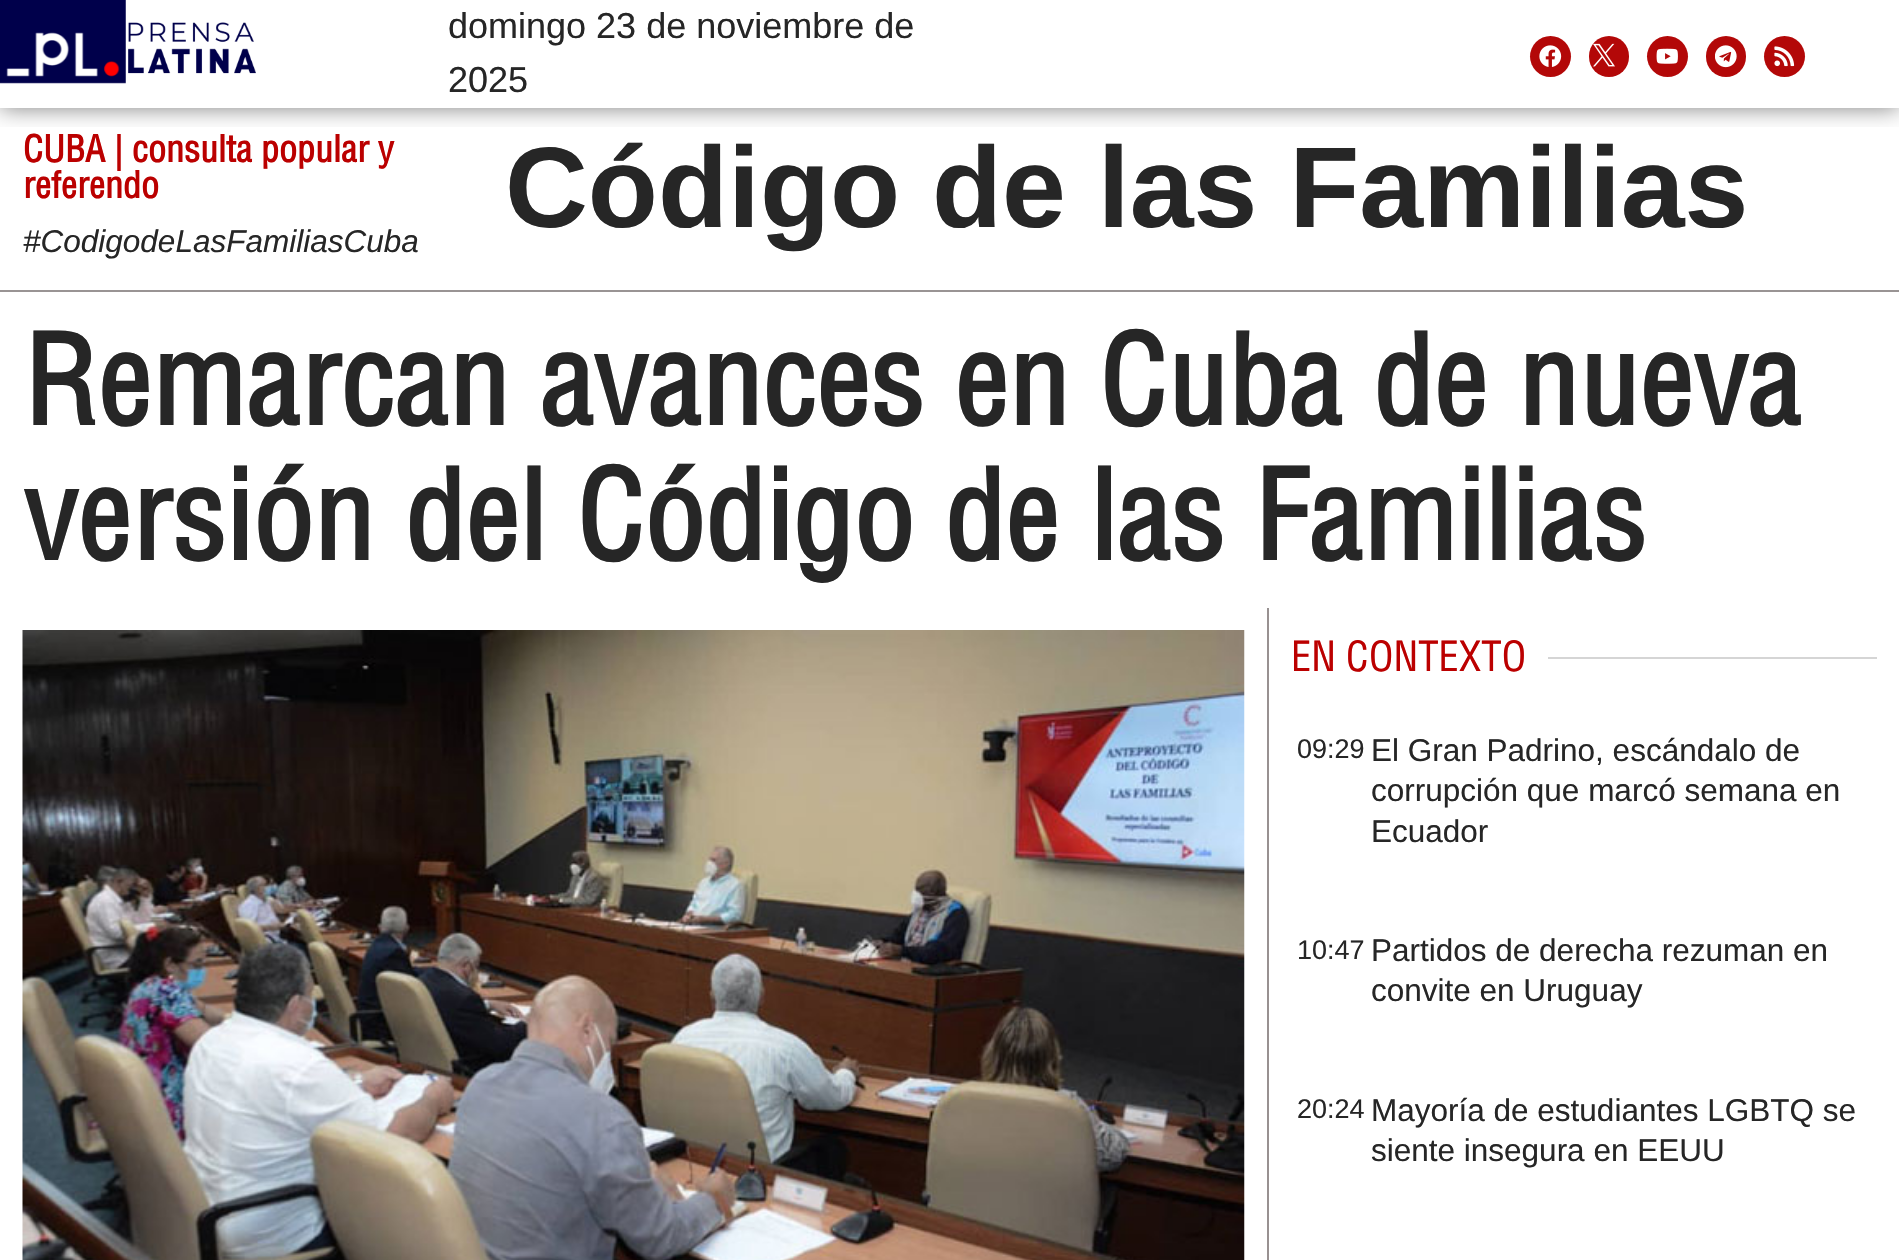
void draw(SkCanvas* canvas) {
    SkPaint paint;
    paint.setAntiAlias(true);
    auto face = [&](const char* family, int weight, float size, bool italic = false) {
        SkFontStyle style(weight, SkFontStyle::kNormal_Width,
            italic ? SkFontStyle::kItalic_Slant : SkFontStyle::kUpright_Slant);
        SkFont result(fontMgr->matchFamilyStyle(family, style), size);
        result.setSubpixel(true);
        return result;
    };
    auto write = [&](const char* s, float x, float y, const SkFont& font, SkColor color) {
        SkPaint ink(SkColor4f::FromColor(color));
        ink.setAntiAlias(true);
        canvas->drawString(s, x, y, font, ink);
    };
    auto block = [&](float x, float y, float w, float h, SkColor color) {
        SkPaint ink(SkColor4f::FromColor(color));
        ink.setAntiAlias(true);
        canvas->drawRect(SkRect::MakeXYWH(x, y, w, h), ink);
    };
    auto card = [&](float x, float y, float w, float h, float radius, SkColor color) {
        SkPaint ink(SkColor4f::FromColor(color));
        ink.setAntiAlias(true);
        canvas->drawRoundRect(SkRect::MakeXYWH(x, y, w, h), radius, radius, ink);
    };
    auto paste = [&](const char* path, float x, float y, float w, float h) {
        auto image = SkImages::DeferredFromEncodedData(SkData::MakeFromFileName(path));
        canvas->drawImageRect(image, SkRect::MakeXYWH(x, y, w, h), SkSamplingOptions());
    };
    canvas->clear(SK_ColorWHITE);
    canvas->save();
    canvas->clipRect(SkRect::MakeXYWH(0, 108, 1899, 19));
    paint.setColor(SkColorSetARGB(128, 0, 0, 0));
    paint.setMaskFilter(SkMaskFilter::MakeBlur(kNormal_SkBlurStyle, 11));
    canvas->drawRect(SkRect::MakeXYWH(0, 0, 1899, 108), paint);
    paint.setMaskFilter(nullptr);
    canvas->restore();
    paste("pic1.png", 0, 0, 126, 84);
    paste("pic2.png", 128, 22, 128, 52);
    auto kFont1 = face("Liberation Sans", 400, 36);
    write("domingo 23 de noviembre de", 448, 38, kFont1, SkColorSetRGB(38, 38, 38));
    write("2025", 448, 92, kFont1, SkColorSetRGB(38, 38, 38));
    paint.setColor(SkColorSetRGB(179, 8, 8));
    canvas->drawCircle(1550.5f, 56.5f, 20.5f, paint);
    paste("pic3.png", 1539, 45, 23, 22);
    card(1589, 36, 40, 41, 20, SkColorSetRGB(179, 8, 8));
    paste("pic4.png", 1593, 43, 22, 24);
    canvas->drawCircle(1667.5f, 56.5f, 20.5f, paint);
    paste("pic5.png", 1656, 48, 22, 16);
    card(1706, 36, 40, 41, 20, SkColorSetRGB(179, 8, 8));
    paste("pic6.png", 1715, 45, 22, 23);
    canvas->drawCircle(1784.5f, 56.5f, 20.5f, paint);
    paste("pic7.png", 1774, 46, 21, 21);
    block(0, 290, 1899, 2, SkColorSetRGB(153, 148, 148));
    auto kFont2 = face("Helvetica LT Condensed", 700, 36);
    write("CUBA | consulta popular y", 23, 162, kFont2, SkColorSetRGB(187, 0, 0));
    write("referendo", 23, 198, kFont2, SkColorSetRGB(187, 0, 0));
    auto kFont3 = face("Liberation Sans", 400, 31.5f, true);
    write("#CodigodeLasFamiliasCuba", 23, 252, kFont3, SkColorSetRGB(38, 38, 38));
    auto kFont4 = face("Liberation Sans", 700, 114.75f);
    write("Código de las Familias", 505, 227, kFont4, SkColorSetRGB(38, 38, 38));
    auto kFont5 = face("Helvetica LT Condensed", 700, 121.5f);
    write("Remarcan avances en Cuba de nueva", 23, 425, kFont5, SkColorSetRGB(38, 38, 38));
    write("versión del Código de las Familias", 23, 560, kFont5, SkColorSetRGB(38, 38, 38));
    paste("pic8.png", 22, 630, 1223, 630);
    block(1267, 608, 2, 652, SkColorSetRGB(152, 145, 145));
    auto kFont6 = face("Helvetica LT Condensed", 500, 40.5f);
    write("EN CONTEXTO", 1291, 671, kFont6, SkColorSetRGB(187, 0, 0));
    block(1548, 657, 329, 2, SkColorSetRGB(213, 213, 213));
    auto kFont7 = face("Liberation Sans", 400, 27);
    write("09:29", 1297, 758, kFont7, SkColorSetRGB(38, 38, 38));
    auto kFont8 = face("Liberation Sans", 400, 31.5f);
    write("El Gran Padrino, escándalo de", 1371, 761, kFont8, SkColorSetRGB(38, 38, 38));
    write("corrupción que marcó semana en", 1371, 801, kFont8, SkColorSetRGB(38, 38, 38));
    write("Ecuador", 1371, 842, kFont8, SkColorSetRGB(38, 38, 38));
    write("10:47", 1297, 959, kFont7, SkColorSetRGB(38, 38, 38));
    write("Partidos de derecha rezuman en", 1371, 961, kFont8, SkColorSetRGB(38, 38, 38));
    write("convite en Uruguay", 1371, 1001, kFont8, SkColorSetRGB(38, 38, 38));
    write("20:24", 1297, 1118, kFont7, SkColorSetRGB(38, 38, 38));
    write("Mayoría de estudiantes LGBTQ se", 1371, 1121, kFont8, SkColorSetRGB(38, 38, 38));
    write("siente insegura en EEUU", 1371, 1161, kFont8, SkColorSetRGB(38, 38, 38));
}
